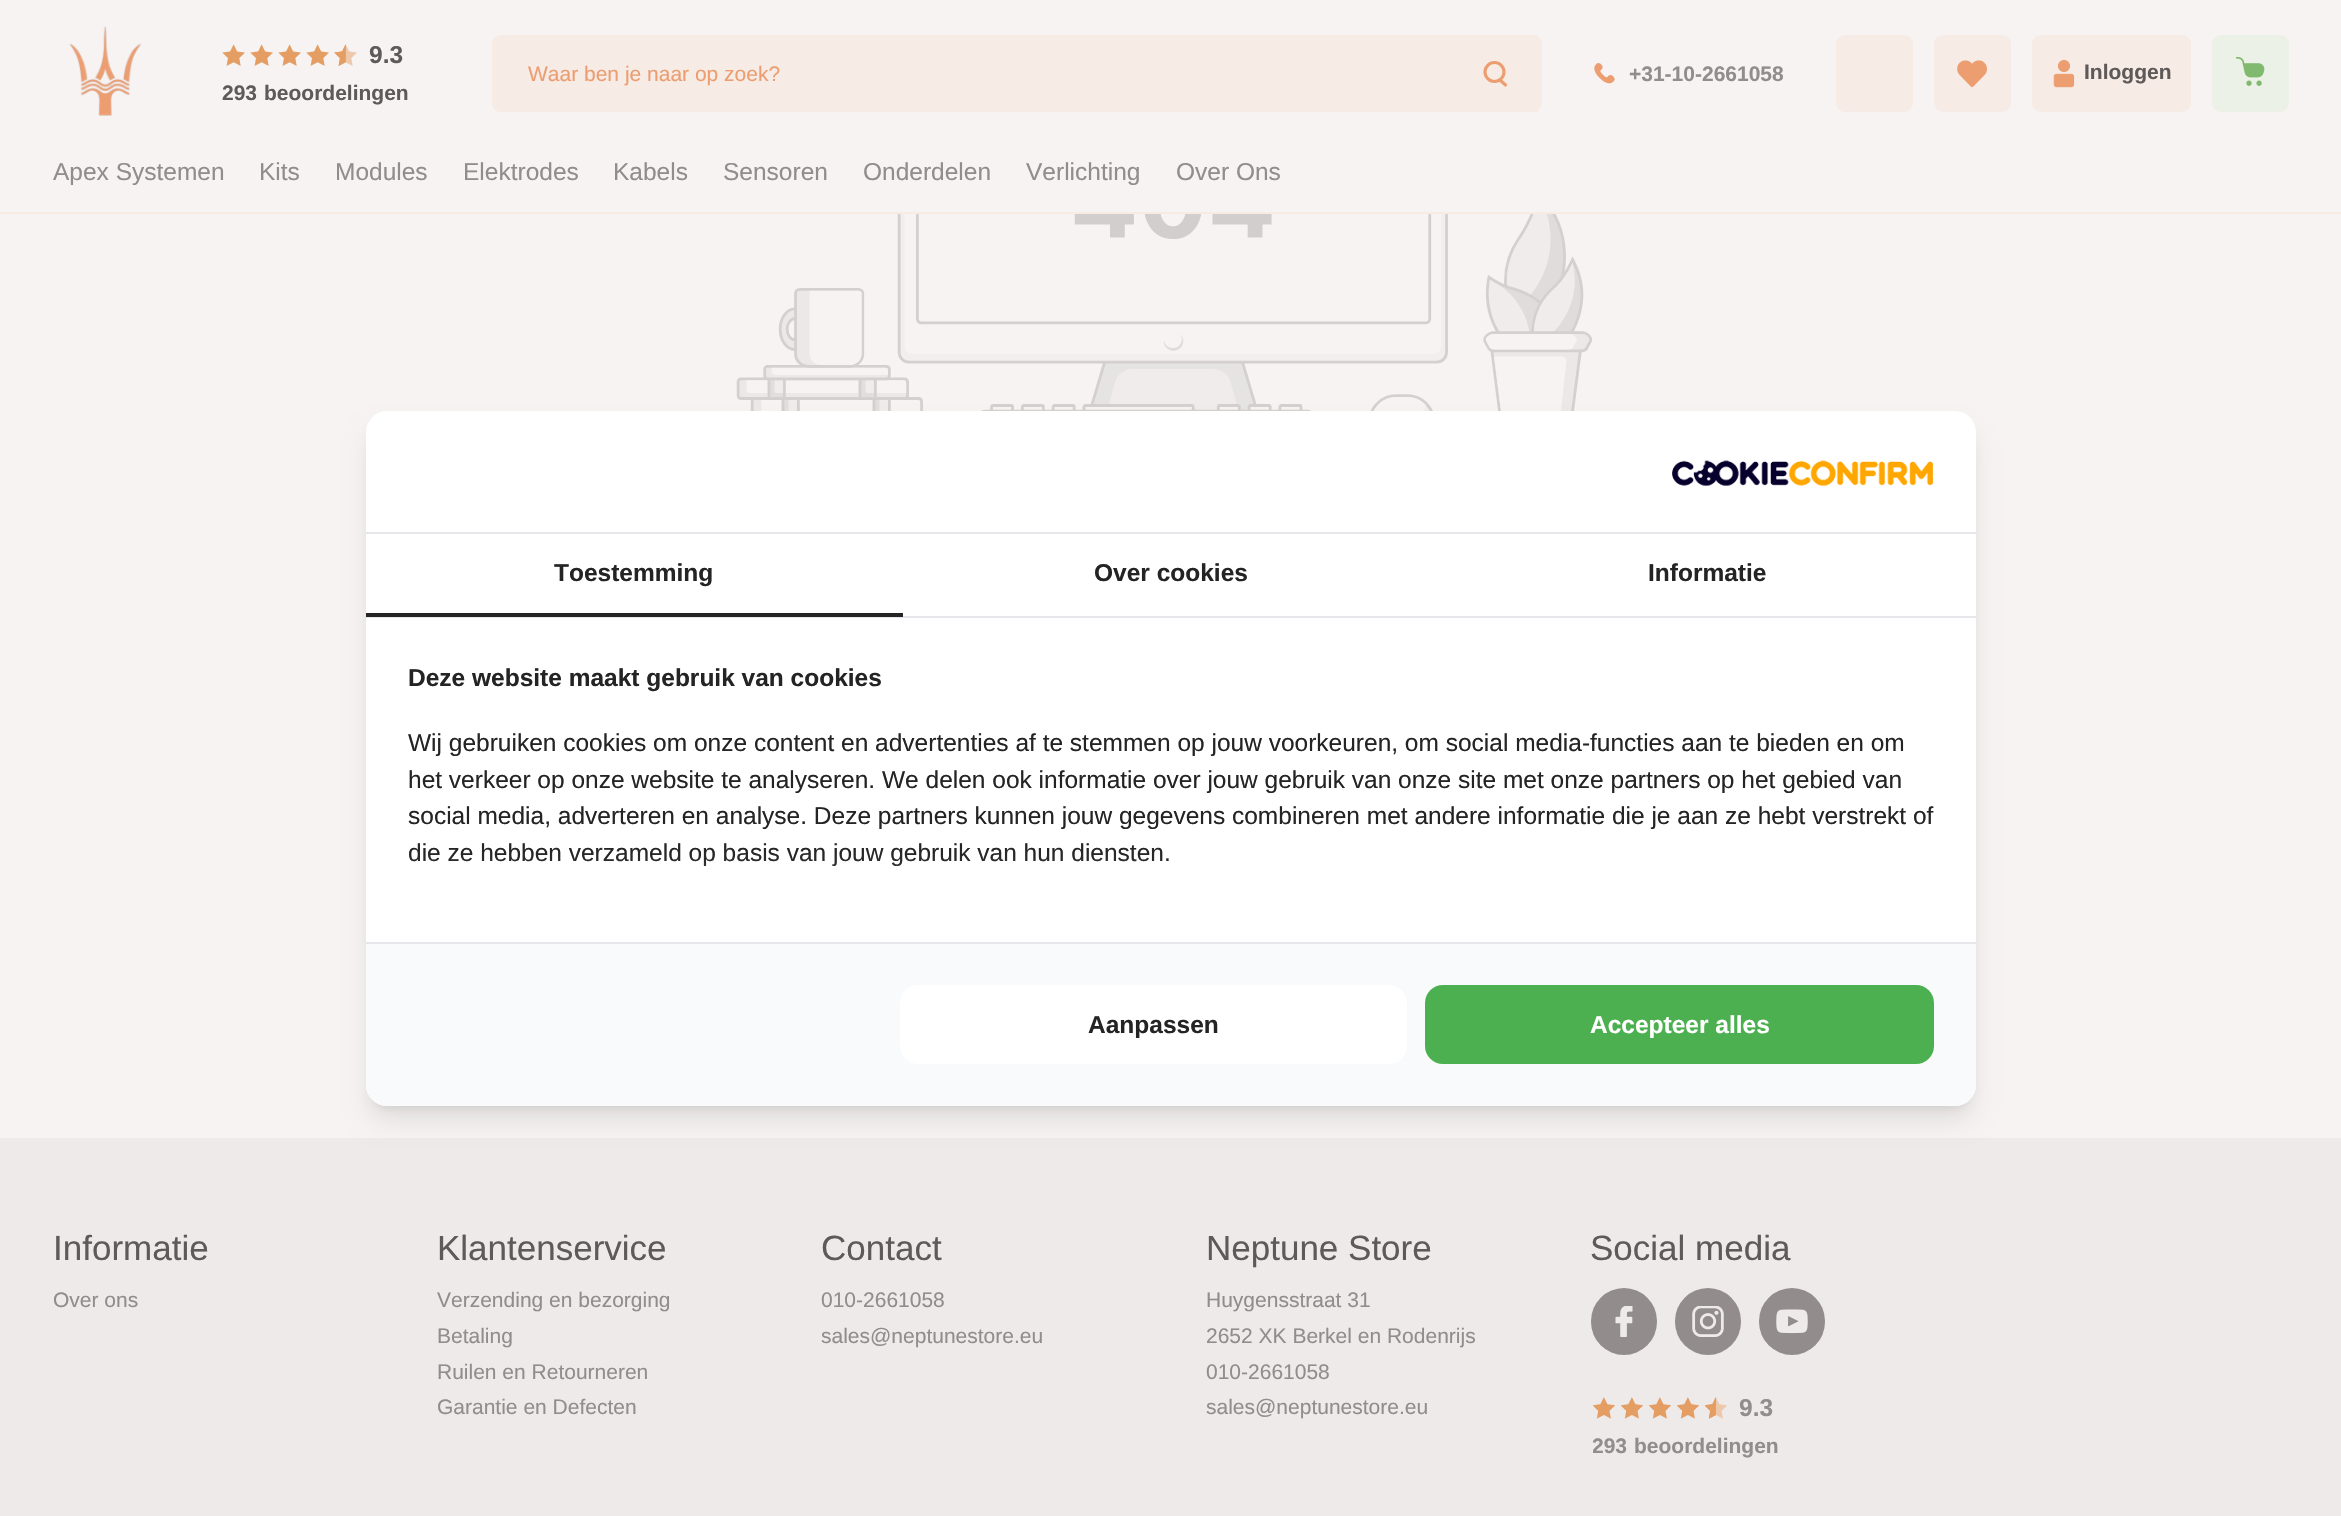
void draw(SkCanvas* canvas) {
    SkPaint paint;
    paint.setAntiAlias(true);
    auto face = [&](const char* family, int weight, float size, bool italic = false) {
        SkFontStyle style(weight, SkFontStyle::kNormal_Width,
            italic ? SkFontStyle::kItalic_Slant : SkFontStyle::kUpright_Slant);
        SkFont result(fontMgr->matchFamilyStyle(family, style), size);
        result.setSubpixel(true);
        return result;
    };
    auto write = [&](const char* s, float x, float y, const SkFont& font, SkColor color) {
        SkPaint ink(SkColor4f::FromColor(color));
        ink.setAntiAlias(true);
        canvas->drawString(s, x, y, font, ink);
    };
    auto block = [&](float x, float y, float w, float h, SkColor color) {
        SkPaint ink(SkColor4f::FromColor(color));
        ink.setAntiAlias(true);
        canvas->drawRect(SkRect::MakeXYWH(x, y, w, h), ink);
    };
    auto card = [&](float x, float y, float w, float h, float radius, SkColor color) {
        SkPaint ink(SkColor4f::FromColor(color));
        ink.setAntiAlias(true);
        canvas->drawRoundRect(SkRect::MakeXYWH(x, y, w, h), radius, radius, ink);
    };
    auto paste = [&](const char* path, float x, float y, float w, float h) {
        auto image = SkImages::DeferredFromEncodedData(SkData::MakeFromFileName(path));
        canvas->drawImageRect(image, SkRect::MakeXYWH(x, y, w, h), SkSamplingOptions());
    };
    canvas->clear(SkColorSetRGB(247, 243, 243));
    block(0, 212, 2341, 2, SkColorSetRGB(246, 235, 229));
    paste("pic1.png", 69, 26, 73, 90);
    paste("pic2.png", 222, 44, 23, 22);
    paste("pic2.png", 250, 44, 23, 22);
    paste("pic2.png", 278, 44, 23, 22);
    paste("pic2.png", 306, 44, 23, 22);
    paste("pic3.png", 334, 44, 23, 22);
    auto kFont1 = face("Liberation Sans", 700, 24.5f);
    write("9.3", 369, 63, kFont1, SkColorSetRGB(94, 90, 90));
    auto kFont2 = face("Liberation Sans", 700, 21);
    write("293", 222, 100, kFont2, SkColorSetRGB(94, 90, 90));
    write("beoordelingen", 264, 100, kFont2, SkColorSetRGB(94, 90, 90));
    paint.setColor(SkColorSetRGB(246, 235, 229));
    canvas->drawPath(SkPathBuilder().moveTo(501, 35).lineTo(1460, 35).lineTo(1460, 112).lineTo(501, 112).cubicTo(496, 112, 492, 108, 492, 103).lineTo(492, 44).cubicTo(492, 39, 496, 35, 501, 35).close().detach(), paint);
    auto kFont3 = face("Liberation Sans", 400, 21);
    write("Waar ben je naar op zoek?", 528, 81, kFont3, SkColorSetRGB(236, 158, 113));
    canvas->drawPath(SkPathBuilder().moveTo(1458, 35).lineTo(1533, 35).cubicTo(1538, 35, 1542, 39, 1542, 44).lineTo(1542, 103).cubicTo(1542, 108, 1538, 112, 1533, 112).lineTo(1458, 112).close().detach(), paint);
    block(1535, 35, 3, 2, SkColorSetRGB(246, 235, 229));
    block(1535, 110, 3, 2, SkColorSetRGB(246, 235, 229));
    paint.setStyle(SkPaint::kStroke_Style);
    paint.setStrokeWidth(3.1f);
    paint.setStrokeCap(SkPaint::kRound_Cap);
    paint.setColor(SkColorSetRGB(236, 158, 113));
    canvas->drawPath(SkPathBuilder().moveTo(1500, 80).lineTo(1505.5f, 85).detach(), paint);
    paint.setStrokeCap(SkPaint::kButt_Cap);
    canvas->drawCircle(1494.5f, 72, 9.5f, paint);
    paste("pic4.png", 1594, 63, 21, 21);
    write("+31-10-2661058", 1629, 81, kFont2, SkColorSetRGB(146, 140, 140));
    card(1836, 35, 77, 77, 9, SkColorSetRGB(246, 235, 229));
    card(1934, 35, 77, 77, 9, SkColorSetRGB(246, 235, 229));
    paste("pic5.png", 1957, 60, 30, 28);
    card(2032, 35, 159, 77, 9, SkColorSetRGB(246, 235, 229));
    paste("pic6.png", 2053, 60, 22, 28);
    write("Inloggen", 2084, 79, kFont2, SkColorSetRGB(94, 90, 90));
    card(2212, 35, 77, 77, 9, SkColorSetRGB(236, 241, 231));
    paste("pic7.png", 2235, 57, 30, 29);
    auto kFont4 = face("Liberation Sans", 400, 24.5f);
    write("Apex Systemen", 53, 180, kFont4, SkColorSetRGB(146, 140, 140));
    write("Kits", 259, 180, kFont4, SkColorSetRGB(146, 140, 140));
    write("Modules", 335, 180, kFont4, SkColorSetRGB(146, 140, 140));
    write("Elektrodes", 463, 180, kFont4, SkColorSetRGB(146, 140, 140));
    write("Kabels", 613, 180, kFont4, SkColorSetRGB(146, 140, 140));
    write("Sensoren", 723, 180, kFont4, SkColorSetRGB(146, 140, 140));
    write("Onderdelen", 863, 180, kFont4, SkColorSetRGB(146, 140, 140));
    write("Verlichting", 1026, 180, kFont4, SkColorSetRGB(146, 140, 140));
    write("Over Ons", 1176, 180, kFont4, SkColorSetRGB(146, 140, 140));
    paste("pic8.png", 736, 214, 857, 197);
    paint.setStyle(SkPaint::kFill_Style);
    paint.setColor(SkColorSetARGB(26, 0, 0, 0));
    paint.setMaskFilter(SkMaskFilter::MakeBlur(kNormal_SkBlurStyle, 5));
    canvas->drawRoundRect(SkRect::MakeXYWH(373, 425, 1596, 681), 14, 14, paint);
    paint.setMaskFilter(nullptr);
    block(0, 1138, 2341, 378, SkColorSetRGB(238, 234, 234));
    paint.setMaskFilter(SkMaskFilter::MakeBlur(kNormal_SkBlurStyle, 13));
    canvas->drawRoundRect(SkRect::MakeXYWH(371, 434, 1600, 684), 16, 16, paint);
    paint.setMaskFilter(nullptr);
    card(366, 411, 1610, 695, 21, SK_ColorWHITE);
    block(366, 532, 1610, 2, SkColorSetRGB(229, 231, 235));
    paste("pic9.png", 1672, 460, 261, 26);
    block(366, 616, 1610, 2, SkColorSetRGB(229, 231, 235));
    block(366, 613, 537, 4, SkColorSetRGB(36, 36, 36));
    write("Toestemming", 554, 581, kFont1, SkColorSetRGB(36, 36, 36));
    write("Over cookies", 1094, 581, kFont1, SkColorSetRGB(36, 36, 36));
    write("Informatie", 1648, 581, kFont1, SkColorSetRGB(36, 36, 36));
    write("Deze website maakt gebruik van cookies", 408, 686, kFont1, SkColorSetRGB(36, 36, 36));
    write("Wij gebruiken cookies om onze content en advertenties af te stemmen op jouw voorkeuren, om social media-functies aan te bieden en om", 408, 751, kFont4, SkColorSetRGB(36, 36, 36));
    write("het verkeer op onze website te analyseren. We delen ook informatie over jouw gebruik van onze site met onze partners op het gebied van", 408, 788, kFont4, SkColorSetRGB(36, 36, 36));
    write("social media, adverteren en analyse. Deze partners kunnen jouw gegevens combineren met andere informatie die je aan ze hebt verstrekt of", 408, 824, kFont4, SkColorSetRGB(36, 36, 36));
    write("die ze hebben verzameld op basis van jouw gebruik van hun diensten.", 408, 861, kFont4, SkColorSetRGB(36, 36, 36));
    canvas->save();
    canvas->clipPath(SkPathBuilder().moveTo(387, 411).lineTo(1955, 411).cubicTo(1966.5f, 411, 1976, 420.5f, 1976, 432).lineTo(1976, 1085).cubicTo(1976, 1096.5f, 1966.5f, 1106, 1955, 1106).lineTo(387, 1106).cubicTo(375.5f, 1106, 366, 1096.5f, 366, 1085).lineTo(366, 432).cubicTo(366, 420.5f, 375.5f, 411, 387, 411).close().detach(), true);
    paint.setColor(SK_ColorWHITE);
    paint.setMaskFilter(SkMaskFilter::MakeBlur(kNormal_SkBlurStyle, 17.5f));
    canvas->drawRect(SkRect::MakeXYWH(352, 893, 1638, 192), paint);
    paint.setMaskFilter(nullptr);
    canvas->restore();
    paint.setColor(SkColorSetRGB(249, 250, 251));
    canvas->drawPath(SkPathBuilder().moveTo(366, 942).lineTo(1976, 942).lineTo(1976, 1085).cubicTo(1976, 1096.5f, 1966.5f, 1106, 1955, 1106).lineTo(387, 1106).cubicTo(375.5f, 1106, 366, 1096.5f, 366, 1085).close().detach(), paint);
    block(366, 942, 1610, 2, SkColorSetRGB(229, 231, 235));
    card(900, 985, 507, 79, 18, SK_ColorWHITE);
    write("Aanpassen", 1088, 1033, kFont1, SkColorSetRGB(36, 36, 36));
    card(1425, 985, 509, 79, 18, SkColorSetRGB(76, 175, 80));
    write("Accepteer alles", 1590, 1033, kFont1, SK_ColorWHITE);
    auto kFont5 = face("Liberation Sans", 400, 35);
    write("Informatie", 53, 1260, kFont5, SkColorSetRGB(94, 90, 90));
    write("Over ons", 53, 1307, kFont3, SkColorSetRGB(146, 140, 140));
    write("Klantenservice", 437, 1260, kFont5, SkColorSetRGB(94, 90, 90));
    write("Verzending en bezorging", 437, 1307, kFont3, SkColorSetRGB(146, 140, 140));
    write("Betaling", 437, 1343, kFont3, SkColorSetRGB(146, 140, 140));
    write("Ruilen en Retourneren", 437, 1379, kFont3, SkColorSetRGB(146, 140, 140));
    write("Garantie en Defecten", 437, 1414, kFont3, SkColorSetRGB(146, 140, 140));
    write("Contact", 821, 1260, kFont5, SkColorSetRGB(94, 90, 90));
    write("010-2661058", 821, 1307, kFont3, SkColorSetRGB(146, 140, 140));
    write("sales@neptunestore.eu", 821, 1343, kFont3, SkColorSetRGB(146, 140, 140));
    write("Neptune Store", 1206, 1260, kFont5, SkColorSetRGB(94, 90, 90));
    write("Huygensstraat 31", 1206, 1307, kFont3, SkColorSetRGB(146, 140, 140));
    write("2652 XK Berkel en Rodenrijs", 1206, 1343, kFont3, SkColorSetRGB(146, 140, 140));
    write("010-2661058", 1206, 1379, kFont3, SkColorSetRGB(146, 140, 140));
    write("sales@neptunestore.eu", 1206, 1414, kFont3, SkColorSetRGB(146, 140, 140));
    write("Social media", 1590, 1260, kFont5, SkColorSetRGB(94, 90, 90));
    card(1591, 1288, 66, 67, 33, SkColorSetRGB(146, 140, 140));
    paste("pic10.png", 1615, 1306, 18, 31);
    card(1675, 1288, 66, 67, 33, SkColorSetRGB(146, 140, 140));
    paste("pic11.png", 1692, 1306, 32, 31);
    card(1759, 1288, 66, 67, 33, SkColorSetRGB(146, 140, 140));
    paste("pic12.png", 1776, 1309, 32, 25);
    paste("pic13.png", 1593, 1397, 22, 22);
    paste("pic13.png", 1621, 1397, 22, 22);
    paste("pic13.png", 1649, 1397, 22, 22);
    paste("pic13.png", 1677, 1397, 22, 22);
    paste("pic14.png", 1705, 1397, 22, 22);
    write("9.3", 1739, 1416, kFont1, SkColorSetRGB(146, 140, 140));
    canvas->save();
    canvas->clipPath(SkPathBuilder().moveTo(1598, 1391).lineTo(1880, 1391).cubicTo(1883, 1391, 1885, 1393, 1885, 1396).lineTo(1885, 1456).cubicTo(1885, 1459, 1883, 1461, 1880, 1461).lineTo(1598, 1461).cubicTo(1595, 1461, 1593, 1459, 1593, 1456).lineTo(1593, 1396).cubicTo(1593, 1393, 1595, 1391, 1598, 1391).close().detach(), true);
    write("293", 1592, 1453, kFont2, SkColorSetRGB(146, 140, 140));
    canvas->restore();
    write("beoordelingen", 1634, 1453, kFont2, SkColorSetRGB(146, 140, 140));
}
